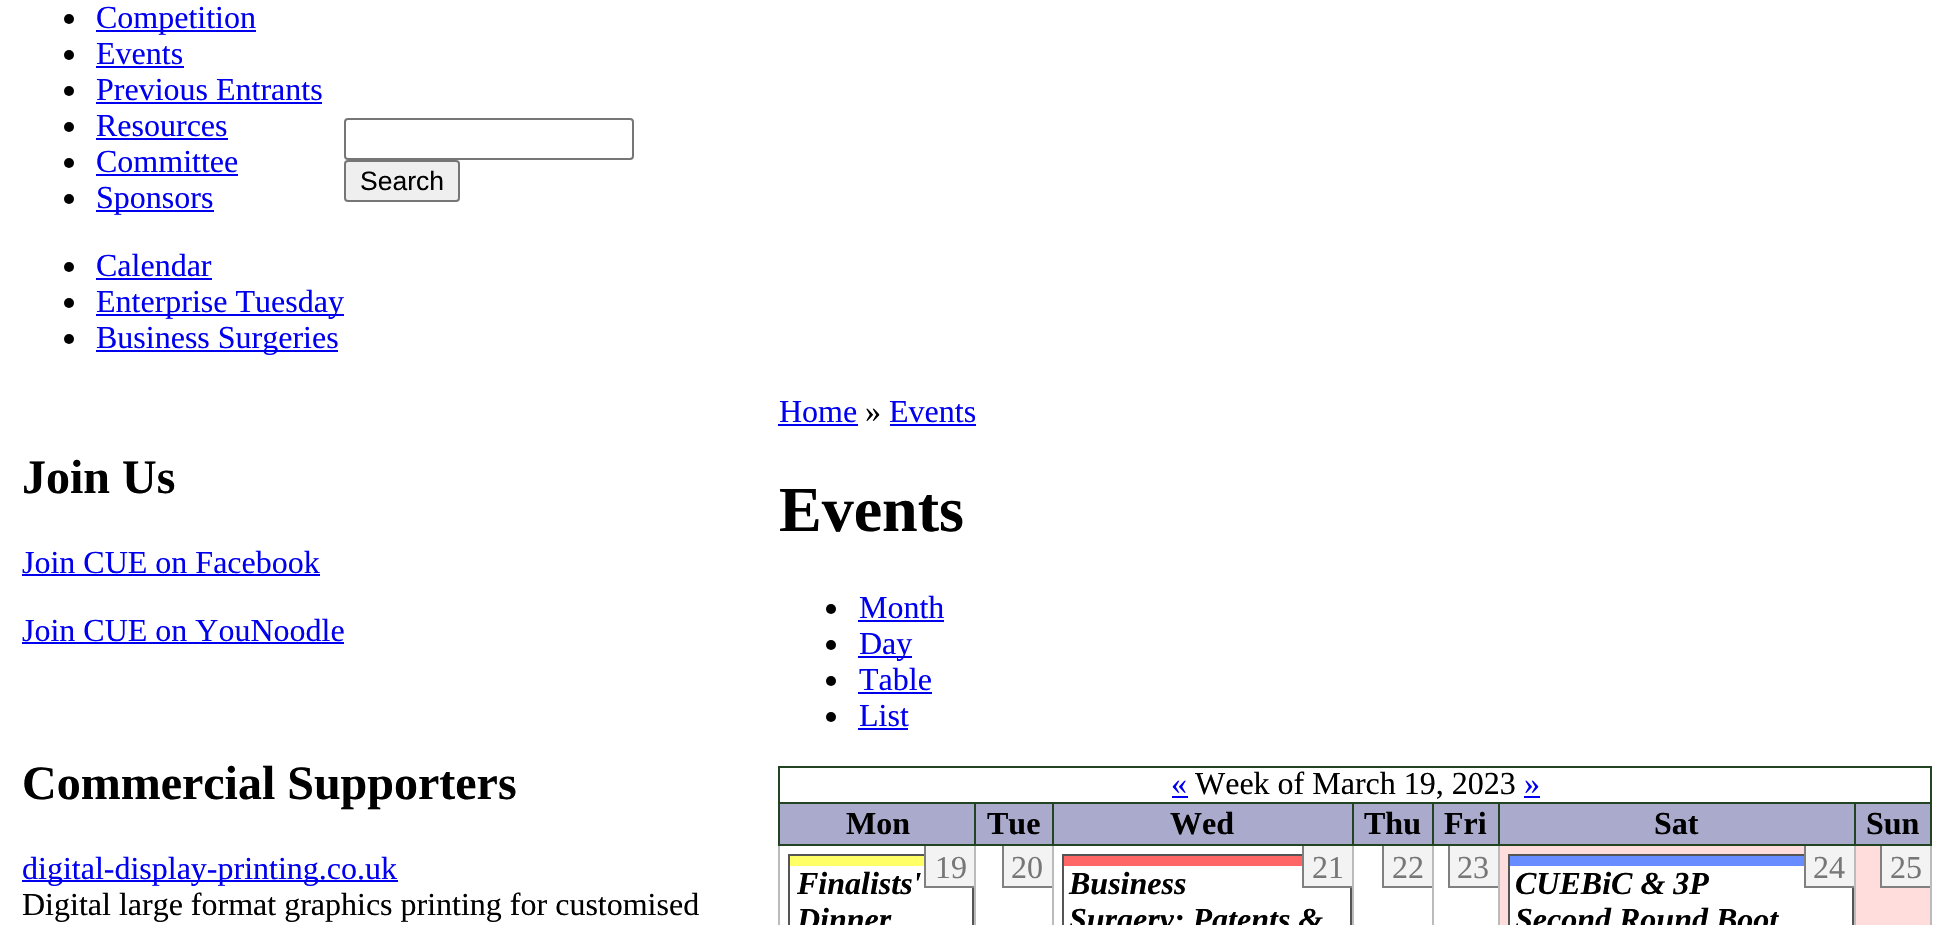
void draw(SkCanvas* canvas) {
    SkPaint paint;
    paint.setAntiAlias(true);
    auto face = [&](const char* family, int weight, float size, bool italic = false) {
        SkFontStyle style(weight, SkFontStyle::kNormal_Width,
            italic ? SkFontStyle::kItalic_Slant : SkFontStyle::kUpright_Slant);
        SkFont result(fontMgr->matchFamilyStyle(family, style), size);
        result.setSubpixel(true);
        return result;
    };
    auto write = [&](const char* s, float x, float y, const SkFont& font, SkColor color) {
        SkPaint ink(SkColor4f::FromColor(color));
        ink.setAntiAlias(true);
        canvas->drawString(s, x, y, font, ink);
    };
    auto block = [&](float x, float y, float w, float h, SkColor color) {
        SkPaint ink(SkColor4f::FromColor(color));
        ink.setAntiAlias(true);
        canvas->drawRect(SkRect::MakeXYWH(x, y, w, h), ink);
    };
    canvas->clear(SK_ColorWHITE);
    paint.setColor(SK_ColorBLACK);
    canvas->drawCircle(69, 19, 5, paint);
    block(96, 30, 160, 2, SkColorSetRGB(0, 0, 238));
    auto kFont1 = face("Liberation Serif", 400, 32);
    write("Competition", 96, 28, kFont1, SkColorSetRGB(0, 0, 238));
    canvas->drawCircle(69, 55, 5, paint);
    write("Events", 96, 64, kFont1, SkColorSetRGB(0, 0, 238));
    block(96, 66, 88, 2, SkColorSetRGB(0, 0, 238));
    canvas->drawCircle(69, 91, 5, paint);
    write("Previous Entrants", 96, 100, kFont1, SkColorSetRGB(0, 0, 238));
    block(96, 102, 226, 2, SkColorSetRGB(0, 0, 238));
    canvas->drawCircle(69, 127, 5, paint);
    write("Resources", 96, 136, kFont1, SkColorSetRGB(0, 0, 238));
    block(96, 138, 132, 2, SkColorSetRGB(0, 0, 238));
    canvas->drawCircle(69, 163, 5, paint);
    write("Committee", 96, 172, kFont1, SkColorSetRGB(0, 0, 238));
    block(96, 174, 142, 2, SkColorSetRGB(0, 0, 238));
    canvas->drawCircle(69, 199, 5, paint);
    block(96, 210, 118, 2, SkColorSetRGB(0, 0, 238));
    write("Sponsors", 96, 208, kFont1, SkColorSetRGB(0, 0, 238));
    canvas->drawCircle(69, 267, 5, paint);
    write("Calendar", 96, 276, kFont1, SkColorSetRGB(0, 0, 238));
    block(96, 278, 116, 2, SkColorSetRGB(0, 0, 238));
    canvas->drawCircle(69, 303, 5, paint);
    block(96, 314, 248, 2, SkColorSetRGB(0, 0, 238));
    write("Enterprise Tuesday", 96, 312, kFont1, SkColorSetRGB(0, 0, 238));
    canvas->drawCircle(69, 339, 5, paint);
    block(96, 350, 242, 2, SkColorSetRGB(0, 0, 238));
    write("Business Surgeries", 96, 348, kFont1, SkColorSetRGB(0, 0, 238));
    paint.setStyle(SkPaint::kStroke_Style);
    paint.setStrokeWidth(2);
    paint.setColor(SkColorSetRGB(118, 118, 118));
    canvas->drawRoundRect(SkRect::MakeXYWH(345, 119, 288, 40), 3, 3, paint);
    paint.setStyle(SkPaint::kFill_Style);
    paint.setColor(SkColorSetRGB(239, 239, 239));
    canvas->drawRoundRect(SkRect::MakeXYWH(345, 161, 114, 40), 3, 3, paint);
    paint.setStyle(SkPaint::kStroke_Style);
    paint.setColor(SkColorSetRGB(118, 118, 118));
    canvas->drawRoundRect(SkRect::MakeXYWH(345, 161, 114, 40), 3, 3, paint);
    auto kFont2 = face("Liberation Sans", 400, 26.5f);
    write("Search", 360, 190, kFont2, SK_ColorBLACK);
    auto kFont3 = face("Liberation Serif", 700, 48);
    write("Join Us", 22, 493, kFont3, SK_ColorBLACK);
    write("Join CUE on Facebook", 22, 573, kFont1, SkColorSetRGB(0, 0, 238));
    block(22, 574, 298, 2, SkColorSetRGB(0, 0, 238));
    write("Join CUE on YouNoodle", 22, 641, kFont1, SkColorSetRGB(0, 0, 238));
    block(22, 642, 322, 2, SkColorSetRGB(0, 0, 238));
    write("Commercial Supporters", 22, 799, kFont3, SK_ColorBLACK);
    block(22, 880, 376, 2, SkColorSetRGB(0, 0, 238));
    write("digital-display-printing.co.uk", 22, 879, kFont1, SkColorSetRGB(0, 0, 238));
    write("Digital large format graphics printing for customised", 22, 915, kFont1, SK_ColorBLACK);
    write("Home", 779, 422, kFont1, SkColorSetRGB(0, 0, 238));
    block(778, 424, 80, 2, SkColorSetRGB(0, 0, 238));
    write("»", 865, 422, kFont1, SK_ColorBLACK);
    write("Events", 889, 422, kFont1, SkColorSetRGB(0, 0, 238));
    block(890, 424, 86, 2, SkColorSetRGB(0, 0, 238));
    auto kFont4 = face("Liberation Serif", 700, 64);
    write("Events", 779, 531, kFont4, SK_ColorBLACK);
    paint.setStyle(SkPaint::kFill_Style);
    paint.setColor(SK_ColorBLACK);
    canvas->drawCircle(831, 609, 5, paint);
    write("Month", 859, 618, kFont1, SkColorSetRGB(0, 0, 238));
    block(858, 620, 86, 2, SkColorSetRGB(0, 0, 238));
    canvas->drawCircle(831, 645, 5, paint);
    block(858, 656, 54, 2, SkColorSetRGB(0, 0, 238));
    write("Day", 859, 654, kFont1, SkColorSetRGB(0, 0, 238));
    canvas->drawCircle(831, 681, 5, paint);
    write("Table", 859, 690, kFont1, SkColorSetRGB(0, 0, 238));
    block(858, 692, 74, 2, SkColorSetRGB(0, 0, 238));
    canvas->drawCircle(831, 717, 5, paint);
    write("List", 859, 726, kFont1, SkColorSetRGB(0, 0, 238));
    block(858, 728, 50, 2, SkColorSetRGB(0, 0, 238));
    block(778, 766, 1154, 2, SkColorSetRGB(34, 68, 34));
    block(1930, 766, 2, 36, SkColorSetRGB(34, 68, 34));
    block(778, 766, 2, 78, SkColorSetRGB(34, 68, 34));
    write("«", 1171, 794, kFont1, SkColorSetRGB(0, 0, 238));
    block(1172, 796, 16, 2, SkColorSetRGB(0, 0, 238));
    write("Week of March 19, 2023", 1195, 794, kFont1, SK_ColorBLACK);
    write("»", 1524, 794, kFont1, SkColorSetRGB(0, 0, 238));
    block(1524, 796, 16, 2, SkColorSetRGB(0, 0, 238));
    block(780, 804, 194, 40, SkColorSetRGB(170, 170, 204));
    block(1854, 802, 78, 2, SkColorSetRGB(34, 68, 34));
    block(1930, 844, 2, 81, SkColorSetRGB(187, 187, 187));
    block(1930, 802, 2, 44, SkColorSetRGB(34, 68, 34));
    block(1854, 844, 2, 81, SkColorSetRGB(187, 187, 187));
    block(1854, 844, 78, 2, SkColorSetRGB(34, 68, 34));
    block(1854, 802, 2, 44, SkColorSetRGB(34, 68, 34));
    block(1498, 802, 358, 2, SkColorSetRGB(34, 68, 34));
    block(1498, 844, 2, 81, SkColorSetRGB(187, 187, 187));
    block(1498, 844, 358, 2, SkColorSetRGB(34, 68, 34));
    block(1498, 802, 2, 44, SkColorSetRGB(34, 68, 34));
    block(1432, 802, 68, 2, SkColorSetRGB(34, 68, 34));
    block(1432, 844, 2, 81, SkColorSetRGB(187, 187, 187));
    block(1432, 844, 68, 2, SkColorSetRGB(34, 68, 34));
    block(1432, 802, 2, 44, SkColorSetRGB(34, 68, 34));
    block(1352, 802, 82, 2, SkColorSetRGB(34, 68, 34));
    block(1352, 844, 2, 81, SkColorSetRGB(187, 187, 187));
    block(1352, 844, 82, 2, SkColorSetRGB(34, 68, 34));
    block(1352, 802, 2, 44, SkColorSetRGB(34, 68, 34));
    block(1052, 802, 302, 2, SkColorSetRGB(34, 68, 34));
    block(1052, 844, 2, 81, SkColorSetRGB(187, 187, 187));
    block(1052, 844, 302, 2, SkColorSetRGB(34, 68, 34));
    block(1052, 802, 2, 44, SkColorSetRGB(34, 68, 34));
    block(974, 802, 80, 2, SkColorSetRGB(34, 68, 34));
    block(974, 844, 2, 81, SkColorSetRGB(187, 187, 187));
    block(974, 844, 80, 2, SkColorSetRGB(34, 68, 34));
    block(974, 802, 2, 44, SkColorSetRGB(34, 68, 34));
    block(778, 802, 198, 2, SkColorSetRGB(34, 68, 34));
    block(778, 844, 2, 81, SkColorSetRGB(187, 187, 187));
    block(778, 844, 198, 2, SkColorSetRGB(34, 68, 34));
    auto kFont5 = face("Liberation Serif", 700, 32);
    write("Mon", 846, 834, kFont5, SK_ColorBLACK);
    block(976, 804, 76, 40, SkColorSetRGB(170, 170, 204));
    write("Tue", 987, 834, kFont5, SK_ColorBLACK);
    block(1054, 804, 298, 40, SkColorSetRGB(170, 170, 204));
    write("Wed", 1170, 834, kFont5, SK_ColorBLACK);
    block(1354, 804, 78, 40, SkColorSetRGB(170, 170, 204));
    write("Thu", 1364, 834, kFont5, SK_ColorBLACK);
    block(1434, 804, 64, 40, SkColorSetRGB(170, 170, 204));
    write("Fri", 1444, 834, kFont5, SK_ColorBLACK);
    block(1500, 804, 354, 40, SkColorSetRGB(170, 170, 204));
    write("Sat", 1654, 834, kFont5, SK_ColorBLACK);
    block(1856, 804, 74, 40, SkColorSetRGB(170, 170, 204));
    write("Sun", 1866, 834, kFont5, SK_ColorBLACK);
    paint.setStyle(SkPaint::kStroke_Style);
    paint.setColor(SkColorSetRGB(85, 85, 85));
    canvas->drawRect(SkRect::MakeXYWH(789, 855, 184, 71), paint);
    block(926, 846, 48, 40, SkColorSetRGB(243, 243, 243));
    block(924, 886, 50, 2, SkColorSetRGB(128, 128, 128));
    block(924, 846, 2, 42, SkColorSetRGB(128, 128, 128));
    write("19", 935, 878, kFont1, SkColorSetRGB(119, 119, 119));
    block(790, 856, 134, 10, SkColorSetRGB(255, 255, 102));
    auto kFont6 = face("Liberation Serif", 700, 32, true);
    write("Finalists'", 797, 894, kFont6, SK_ColorBLACK);
    write("Dinner", 797, 930, kFont6, SK_ColorBLACK);
    block(1004, 846, 48, 40, SkColorSetRGB(243, 243, 243));
    block(1002, 886, 50, 2, SkColorSetRGB(128, 128, 128));
    block(1002, 846, 2, 42, SkColorSetRGB(128, 128, 128));
    write("20", 1011, 878, kFont1, SkColorSetRGB(119, 119, 119));
    canvas->drawRect(SkRect::MakeXYWH(1063, 855, 288, 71), paint);
    block(1304, 846, 48, 40, SkColorSetRGB(243, 243, 243));
    block(1302, 886, 50, 2, SkColorSetRGB(128, 128, 128));
    block(1302, 846, 2, 42, SkColorSetRGB(128, 128, 128));
    write("21", 1312, 878, kFont1, SkColorSetRGB(119, 119, 119));
    block(1064, 856, 238, 10, SkColorSetRGB(255, 102, 102));
    write("Business", 1069, 894, kFont6, SK_ColorBLACK);
    write("Surgery: Patents &", 1069, 930, kFont6, SK_ColorBLACK);
    block(1384, 846, 48, 40, SkColorSetRGB(243, 243, 243));
    block(1382, 886, 50, 2, SkColorSetRGB(128, 128, 128));
    block(1382, 846, 2, 42, SkColorSetRGB(128, 128, 128));
    write("22", 1392, 878, kFont1, SkColorSetRGB(119, 119, 119));
    block(1450, 846, 48, 40, SkColorSetRGB(243, 243, 243));
    block(1448, 886, 50, 2, SkColorSetRGB(128, 128, 128));
    block(1448, 846, 2, 42, SkColorSetRGB(128, 128, 128));
    write("23", 1457, 878, kFont1, SkColorSetRGB(119, 119, 119));
    block(1500, 846, 304, 79, SkColorSetRGB(255, 221, 221));
    block(1510, 866, 294, 59, SK_ColorWHITE);
    canvas->drawRect(SkRect::MakeXYWH(1509, 855, 344, 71), paint);
    block(1806, 846, 48, 40, SkColorSetRGB(243, 243, 243));
    block(1804, 886, 50, 2, SkColorSetRGB(128, 128, 128));
    block(1804, 846, 2, 42, SkColorSetRGB(128, 128, 128));
    write("24", 1813, 878, kFont1, SkColorSetRGB(119, 119, 119));
    block(1510, 856, 294, 10, SkColorSetRGB(102, 140, 255));
    write("CUEBiC & 3P", 1515, 894, kFont6, SK_ColorBLACK);
    write("Second Round Boot", 1515, 930, kFont6, SK_ColorBLACK);
    block(1856, 846, 74, 79, SkColorSetRGB(255, 221, 221));
    block(1882, 846, 48, 40, SkColorSetRGB(243, 243, 243));
    block(1880, 886, 50, 2, SkColorSetRGB(128, 128, 128));
    block(1880, 846, 2, 42, SkColorSetRGB(128, 128, 128));
    write("25", 1890, 878, kFont1, SkColorSetRGB(119, 119, 119));
}
